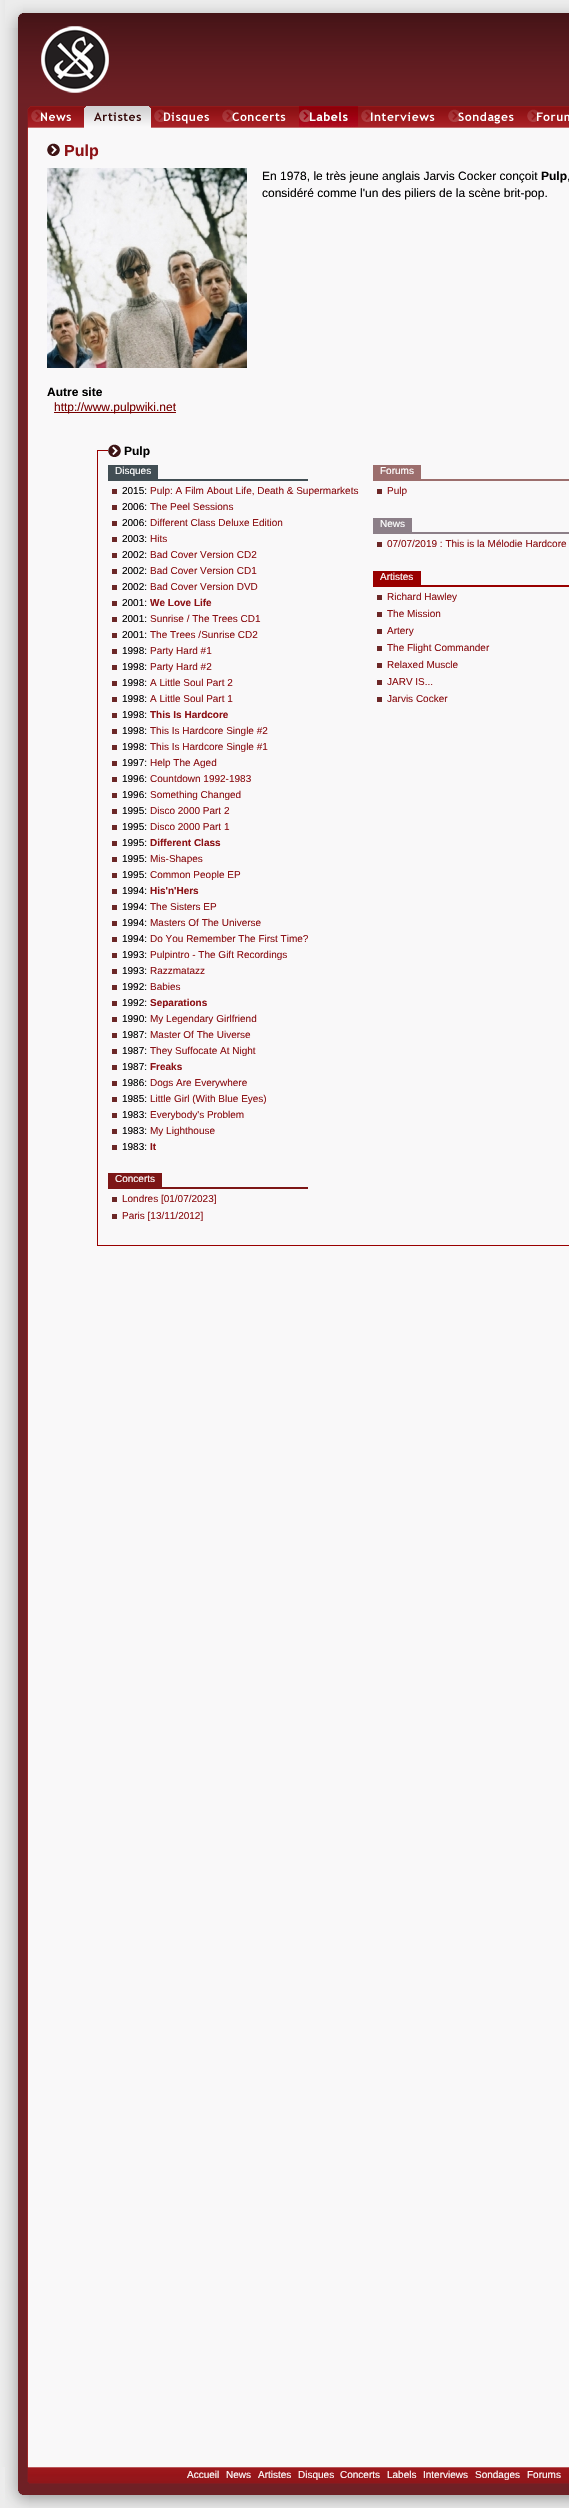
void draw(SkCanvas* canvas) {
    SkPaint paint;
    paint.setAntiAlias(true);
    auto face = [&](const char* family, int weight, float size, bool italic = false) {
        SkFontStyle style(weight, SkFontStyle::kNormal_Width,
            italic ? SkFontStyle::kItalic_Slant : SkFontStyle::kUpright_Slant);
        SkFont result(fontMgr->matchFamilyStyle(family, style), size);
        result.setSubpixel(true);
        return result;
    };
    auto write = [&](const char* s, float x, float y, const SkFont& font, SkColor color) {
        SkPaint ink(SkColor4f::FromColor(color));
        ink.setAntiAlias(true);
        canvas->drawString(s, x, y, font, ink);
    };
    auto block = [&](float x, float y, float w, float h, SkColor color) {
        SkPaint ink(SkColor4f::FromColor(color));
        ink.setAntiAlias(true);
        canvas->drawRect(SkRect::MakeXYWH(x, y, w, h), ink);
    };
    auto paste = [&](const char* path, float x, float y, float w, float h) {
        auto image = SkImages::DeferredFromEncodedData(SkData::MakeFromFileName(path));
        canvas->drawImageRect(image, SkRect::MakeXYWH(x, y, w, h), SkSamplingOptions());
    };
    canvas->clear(SkColorSetRGB(236, 236, 236));
    paste("pic13.png", 0, 0, 28, 2467);
    paste("pic1.png", 18, 0, 551, 128);
    paste("pic2.png", 5, 0, 18, 28);
    paste("pic3.png", 41, 26, 68, 67);
    paste("pic4.png", 18, 106, 12, 22);
    paste("pic5.png", 31, 109, 40, 13);
    paste("pic6.png", 84, 106, 67, 22);
    paste("pic7.png", 154, 109, 55, 15);
    paste("pic8.png", 222, 109, 64, 13);
    paste("pic9.png", 299, 106, 59, 22);
    paste("pic10.png", 361, 109, 74, 13);
    paste("pic11.png", 448, 109, 66, 15);
    paste("pic12.png", 527, 109, 42, 13);
    block(28, 128, 541, 2339, SkColorSetRGB(249, 248, 249));
    paste("pic14.png", 47, 143, 13, 13);
    auto kFont1 = face("Liberation Sans", 700, 16);
    write("Pulp", 64, 156, kFont1, SkColorSetRGB(140, 17, 21));
    paste("pic15.png", 47, 168, 200, 200);
    auto kFont2 = face("Liberation Sans", 400, 12);
    write("En 1978, le très jeune anglais Jarvis Cocker conçoit", 262, 180, kFont2, SK_ColorBLACK);
    auto kFont3 = face("Liberation Sans", 700, 12);
    write("Pulp", 541, 180, kFont3, SK_ColorBLACK);
    write(",", 567, 180, kFont2, SK_ColorBLACK);
    write("considéré comme l'un des piliers de la scène brit-pop.", 262, 197, kFont2, SK_ColorBLACK);
    write("Autre site", 47, 396, kFont3, SK_ColorBLACK);
    block(54, 412, 122, 1, SkColorSetRGB(119, 0, 0));
    write("http://www.pulpwiki.net", 54, 411, kFont2, SkColorSetRGB(119, 0, 0));
    block(97, 450, 1, 8, SkColorSetRGB(153, 0, 0));
    paste("pic14.png", 108, 444, 13, 13);
    write("Pulp", 124, 455, kFont3, SK_ColorBLACK);
    block(97, 450, 11, 1, SkColorSetRGB(153, 0, 0));
    block(97, 458, 472, 788, SkColorSetRGB(153, 0, 0));
    block(98, 458, 471, 787, SkColorSetRGB(249, 248, 249));
    block(108, 465, 50, 14, SkColorSetRGB(66, 78, 84));
    auto kFont4 = face("Liberation Sans", 400, 10);
    write("Disques", 115, 474, kFont4, SK_ColorWHITE);
    block(108, 479, 200, 2, SkColorSetRGB(66, 78, 84));
    block(112, 489, 5, 5, SkColorSetRGB(108, 39, 39));
    write("2015:", 122, 494, kFont4, SK_ColorBLACK);
    write("Pulp: A Film About Life, Death & Supermarkets", 150, 494, kFont4, SkColorSetRGB(140, 17, 21));
    block(112, 505, 5, 5, SkColorSetRGB(108, 39, 39));
    write("2006:", 122, 510, kFont4, SK_ColorBLACK);
    write("The Peel Sessions", 150, 510, kFont4, SkColorSetRGB(140, 17, 21));
    block(112, 521, 5, 5, SkColorSetRGB(108, 39, 39));
    write("2006:", 122, 526, kFont4, SK_ColorBLACK);
    write("Different Class Deluxe Edition", 150, 526, kFont4, SkColorSetRGB(140, 17, 21));
    block(112, 537, 5, 5, SkColorSetRGB(108, 39, 39));
    write("2003:", 122, 542, kFont4, SK_ColorBLACK);
    write("Hits", 150, 542, kFont4, SkColorSetRGB(140, 17, 21));
    block(112, 553, 5, 5, SkColorSetRGB(108, 39, 39));
    write("2002:", 122, 558, kFont4, SK_ColorBLACK);
    write("Bad Cover Version CD2", 150, 558, kFont4, SkColorSetRGB(140, 17, 21));
    block(112, 569, 5, 5, SkColorSetRGB(108, 39, 39));
    write("2002:", 122, 574, kFont4, SK_ColorBLACK);
    write("Bad Cover Version CD1", 150, 574, kFont4, SkColorSetRGB(140, 17, 21));
    block(112, 585, 5, 5, SkColorSetRGB(108, 39, 39));
    write("2002:", 122, 590, kFont4, SK_ColorBLACK);
    write("Bad Cover Version DVD", 150, 590, kFont4, SkColorSetRGB(140, 17, 21));
    block(112, 601, 5, 5, SkColorSetRGB(108, 39, 39));
    write("2001:", 122, 606, kFont4, SK_ColorBLACK);
    auto kFont5 = face("Liberation Sans", 700, 10);
    write("We Love Life", 150, 606, kFont5, SkColorSetRGB(140, 17, 21));
    block(112, 617, 5, 5, SkColorSetRGB(108, 39, 39));
    write("2001:", 122, 622, kFont4, SK_ColorBLACK);
    write("Sunrise / The Trees CD1", 150, 622, kFont4, SkColorSetRGB(140, 17, 21));
    block(112, 633, 5, 5, SkColorSetRGB(108, 39, 39));
    write("2001:", 122, 638, kFont4, SK_ColorBLACK);
    write("The Trees /Sunrise CD2", 150, 638, kFont4, SkColorSetRGB(140, 17, 21));
    block(112, 649, 5, 5, SkColorSetRGB(108, 39, 39));
    write("1998:", 122, 654, kFont4, SK_ColorBLACK);
    write("Party Hard #1", 150, 654, kFont4, SkColorSetRGB(140, 17, 21));
    block(112, 665, 5, 5, SkColorSetRGB(108, 39, 39));
    write("1998:", 122, 670, kFont4, SK_ColorBLACK);
    write("Party Hard #2", 150, 670, kFont4, SkColorSetRGB(140, 17, 21));
    block(112, 681, 5, 5, SkColorSetRGB(108, 39, 39));
    write("1998:", 122, 686, kFont4, SK_ColorBLACK);
    write("A Little Soul Part 2", 150, 686, kFont4, SkColorSetRGB(140, 17, 21));
    block(112, 697, 5, 5, SkColorSetRGB(108, 39, 39));
    write("1998:", 122, 702, kFont4, SK_ColorBLACK);
    write("A Little Soul Part 1", 150, 702, kFont4, SkColorSetRGB(140, 17, 21));
    block(112, 713, 5, 5, SkColorSetRGB(108, 39, 39));
    write("1998:", 122, 718, kFont4, SK_ColorBLACK);
    write("This Is Hardcore", 150, 718, kFont5, SkColorSetRGB(140, 17, 21));
    block(112, 729, 5, 5, SkColorSetRGB(108, 39, 39));
    write("1998:", 122, 734, kFont4, SK_ColorBLACK);
    write("This Is Hardcore Single #2", 150, 734, kFont4, SkColorSetRGB(140, 17, 21));
    block(112, 745, 5, 5, SkColorSetRGB(108, 39, 39));
    write("1998:", 122, 750, kFont4, SK_ColorBLACK);
    write("This Is Hardcore Single #1", 150, 750, kFont4, SkColorSetRGB(140, 17, 21));
    block(112, 761, 5, 5, SkColorSetRGB(108, 39, 39));
    write("1997:", 122, 766, kFont4, SK_ColorBLACK);
    write("Help The Aged", 150, 766, kFont4, SkColorSetRGB(140, 17, 21));
    block(112, 777, 5, 5, SkColorSetRGB(108, 39, 39));
    write("1996:", 122, 782, kFont4, SK_ColorBLACK);
    write("Countdown 1992-1983", 150, 782, kFont4, SkColorSetRGB(140, 17, 21));
    block(112, 793, 5, 5, SkColorSetRGB(108, 39, 39));
    write("1996:", 122, 798, kFont4, SK_ColorBLACK);
    write("Something Changed", 150, 798, kFont4, SkColorSetRGB(140, 17, 21));
    block(112, 809, 5, 5, SkColorSetRGB(108, 39, 39));
    write("1995:", 122, 814, kFont4, SK_ColorBLACK);
    write("Disco 2000 Part 2", 150, 814, kFont4, SkColorSetRGB(140, 17, 21));
    block(112, 825, 5, 5, SkColorSetRGB(108, 39, 39));
    write("1995:", 122, 830, kFont4, SK_ColorBLACK);
    write("Disco 2000 Part 1", 150, 830, kFont4, SkColorSetRGB(140, 17, 21));
    block(112, 841, 5, 5, SkColorSetRGB(108, 39, 39));
    write("1995:", 122, 846, kFont4, SK_ColorBLACK);
    write("Different Class", 150, 846, kFont5, SkColorSetRGB(140, 17, 21));
    block(112, 857, 5, 5, SkColorSetRGB(108, 39, 39));
    write("1995:", 122, 862, kFont4, SK_ColorBLACK);
    write("Mis-Shapes", 150, 862, kFont4, SkColorSetRGB(140, 17, 21));
    block(112, 873, 5, 5, SkColorSetRGB(108, 39, 39));
    write("1995:", 122, 878, kFont4, SK_ColorBLACK);
    write("Common People EP", 150, 878, kFont4, SkColorSetRGB(140, 17, 21));
    block(112, 889, 5, 5, SkColorSetRGB(108, 39, 39));
    write("1994:", 122, 894, kFont4, SK_ColorBLACK);
    write("His'n'Hers", 150, 894, kFont5, SkColorSetRGB(140, 17, 21));
    block(112, 905, 5, 5, SkColorSetRGB(108, 39, 39));
    write("1994:", 122, 910, kFont4, SK_ColorBLACK);
    write("The Sisters EP", 150, 910, kFont4, SkColorSetRGB(140, 17, 21));
    block(112, 921, 5, 5, SkColorSetRGB(108, 39, 39));
    write("1994:", 122, 926, kFont4, SK_ColorBLACK);
    write("Masters Of The Universe", 150, 926, kFont4, SkColorSetRGB(140, 17, 21));
    block(112, 937, 5, 5, SkColorSetRGB(108, 39, 39));
    write("1994:", 122, 942, kFont4, SK_ColorBLACK);
    write("Do You Remember The First Time?", 150, 942, kFont4, SkColorSetRGB(140, 17, 21));
    block(112, 953, 5, 5, SkColorSetRGB(108, 39, 39));
    write("1993:", 122, 958, kFont4, SK_ColorBLACK);
    write("Pulpintro - The Gift Recordings", 150, 958, kFont4, SkColorSetRGB(140, 17, 21));
    block(112, 969, 5, 5, SkColorSetRGB(108, 39, 39));
    write("1993:", 122, 974, kFont4, SK_ColorBLACK);
    write("Razzmatazz", 150, 974, kFont4, SkColorSetRGB(140, 17, 21));
    block(112, 985, 5, 5, SkColorSetRGB(108, 39, 39));
    write("1992:", 122, 990, kFont4, SK_ColorBLACK);
    write("Babies", 150, 990, kFont4, SkColorSetRGB(140, 17, 21));
    block(112, 1001, 5, 5, SkColorSetRGB(108, 39, 39));
    write("1992:", 122, 1006, kFont4, SK_ColorBLACK);
    write("Separations", 150, 1006, kFont5, SkColorSetRGB(140, 17, 21));
    block(112, 1017, 5, 5, SkColorSetRGB(108, 39, 39));
    write("1990:", 122, 1022, kFont4, SK_ColorBLACK);
    write("My Legendary Girlfriend", 150, 1022, kFont4, SkColorSetRGB(140, 17, 21));
    block(112, 1033, 5, 5, SkColorSetRGB(108, 39, 39));
    write("1987:", 122, 1038, kFont4, SK_ColorBLACK);
    write("Master Of The Uiverse", 150, 1038, kFont4, SkColorSetRGB(140, 17, 21));
    block(112, 1049, 5, 5, SkColorSetRGB(108, 39, 39));
    write("1987:", 122, 1054, kFont4, SK_ColorBLACK);
    write("They Suffocate At Night", 150, 1054, kFont4, SkColorSetRGB(140, 17, 21));
    block(112, 1065, 5, 5, SkColorSetRGB(108, 39, 39));
    write("1987:", 122, 1070, kFont4, SK_ColorBLACK);
    write("Freaks", 150, 1070, kFont5, SkColorSetRGB(140, 17, 21));
    block(112, 1081, 5, 5, SkColorSetRGB(108, 39, 39));
    write("1986:", 122, 1086, kFont4, SK_ColorBLACK);
    write("Dogs Are Everywhere", 150, 1086, kFont4, SkColorSetRGB(140, 17, 21));
    block(112, 1097, 5, 5, SkColorSetRGB(108, 39, 39));
    write("1985:", 122, 1102, kFont4, SK_ColorBLACK);
    write("Little Girl (With Blue Eyes)", 150, 1102, kFont4, SkColorSetRGB(140, 17, 21));
    block(112, 1113, 5, 5, SkColorSetRGB(108, 39, 39));
    write("1983:", 122, 1118, kFont4, SK_ColorBLACK);
    write("Everybody's Problem", 150, 1118, kFont4, SkColorSetRGB(140, 17, 21));
    block(112, 1129, 5, 5, SkColorSetRGB(108, 39, 39));
    write("1983:", 122, 1134, kFont4, SK_ColorBLACK);
    write("My Lighthouse", 150, 1134, kFont4, SkColorSetRGB(140, 17, 21));
    block(112, 1145, 5, 5, SkColorSetRGB(108, 39, 39));
    write("1983:", 122, 1150, kFont4, SK_ColorBLACK);
    write("It", 150, 1150, kFont5, SkColorSetRGB(140, 17, 21));
    block(108, 1173, 54, 14, SkColorSetRGB(125, 22, 22));
    write("Concerts", 115, 1182, kFont4, SK_ColorWHITE);
    block(108, 1187, 200, 2, SkColorSetRGB(125, 22, 22));
    block(112, 1197, 5, 5, SkColorSetRGB(108, 39, 39));
    write("Londres [01/07/2023]", 122, 1202, kFont4, SkColorSetRGB(140, 17, 21));
    block(112, 1214, 5, 5, SkColorSetRGB(108, 39, 39));
    write("Paris [13/11/2012]", 122, 1219, kFont4, SkColorSetRGB(140, 17, 21));
    block(373, 465, 48, 14, SkColorSetRGB(156, 110, 109));
    write("Forums", 380, 474, kFont4, SK_ColorWHITE);
    block(373, 479, 196, 2, SkColorSetRGB(156, 110, 109));
    block(377, 489, 5, 5, SkColorSetRGB(108, 39, 39));
    write("Pulp", 387, 494, kFont4, SkColorSetRGB(140, 17, 21));
    block(373, 518, 39, 14, SkColorSetRGB(140, 127, 136));
    write("News", 380, 527, kFont4, SK_ColorWHITE);
    block(373, 532, 196, 2, SkColorSetRGB(140, 127, 136));
    block(377, 542, 5, 5, SkColorSetRGB(108, 39, 39));
    write("07/07/2019 : This is la Mélodie Hardcore", 387, 547, kFont4, SkColorSetRGB(140, 17, 21));
    block(373, 571, 48, 14, SkColorSetRGB(153, 0, 0));
    write("Artistes", 380, 580, kFont4, SK_ColorWHITE);
    block(373, 585, 196, 2, SkColorSetRGB(153, 0, 0));
    block(377, 595, 5, 5, SkColorSetRGB(108, 39, 39));
    write("Richard Hawley", 387, 600, kFont4, SkColorSetRGB(140, 17, 21));
    block(377, 612, 5, 5, SkColorSetRGB(108, 39, 39));
    write("The Mission", 387, 617, kFont4, SkColorSetRGB(140, 17, 21));
    block(377, 629, 5, 5, SkColorSetRGB(108, 39, 39));
    write("Artery", 387, 634, kFont4, SkColorSetRGB(140, 17, 21));
    block(377, 646, 5, 5, SkColorSetRGB(108, 39, 39));
    write("The Flight Commander", 387, 651, kFont4, SkColorSetRGB(140, 17, 21));
    block(377, 663, 5, 5, SkColorSetRGB(108, 39, 39));
    write("Relaxed Muscle", 387, 668, kFont4, SkColorSetRGB(140, 17, 21));
    block(377, 680, 5, 5, SkColorSetRGB(108, 39, 39));
    write("JARV IS...", 387, 685, kFont4, SkColorSetRGB(140, 17, 21));
    block(377, 697, 5, 5, SkColorSetRGB(108, 39, 39));
    write("Jarvis Cocker", 387, 702, kFont4, SkColorSetRGB(140, 17, 21));
    paste("pic16.png", 5, 2467, 24, 41);
    paste("pic17.png", 29, 2467, 540, 41);
    write("Accueil", 187, 2478, kFont4, SK_ColorWHITE);
    write("News", 226, 2478, kFont4, SK_ColorWHITE);
    write("Artistes", 258, 2478, kFont4, SK_ColorWHITE);
    write("Disques", 298, 2478, kFont4, SK_ColorWHITE);
    write("Concerts", 340, 2478, kFont4, SK_ColorWHITE);
    write("Labels", 387, 2478, kFont4, SK_ColorWHITE);
    write("Interviews", 423, 2478, kFont4, SK_ColorWHITE);
    write("Sondages", 475, 2478, kFont4, SK_ColorWHITE);
    write("Forums", 527, 2478, kFont4, SK_ColorWHITE);
}
